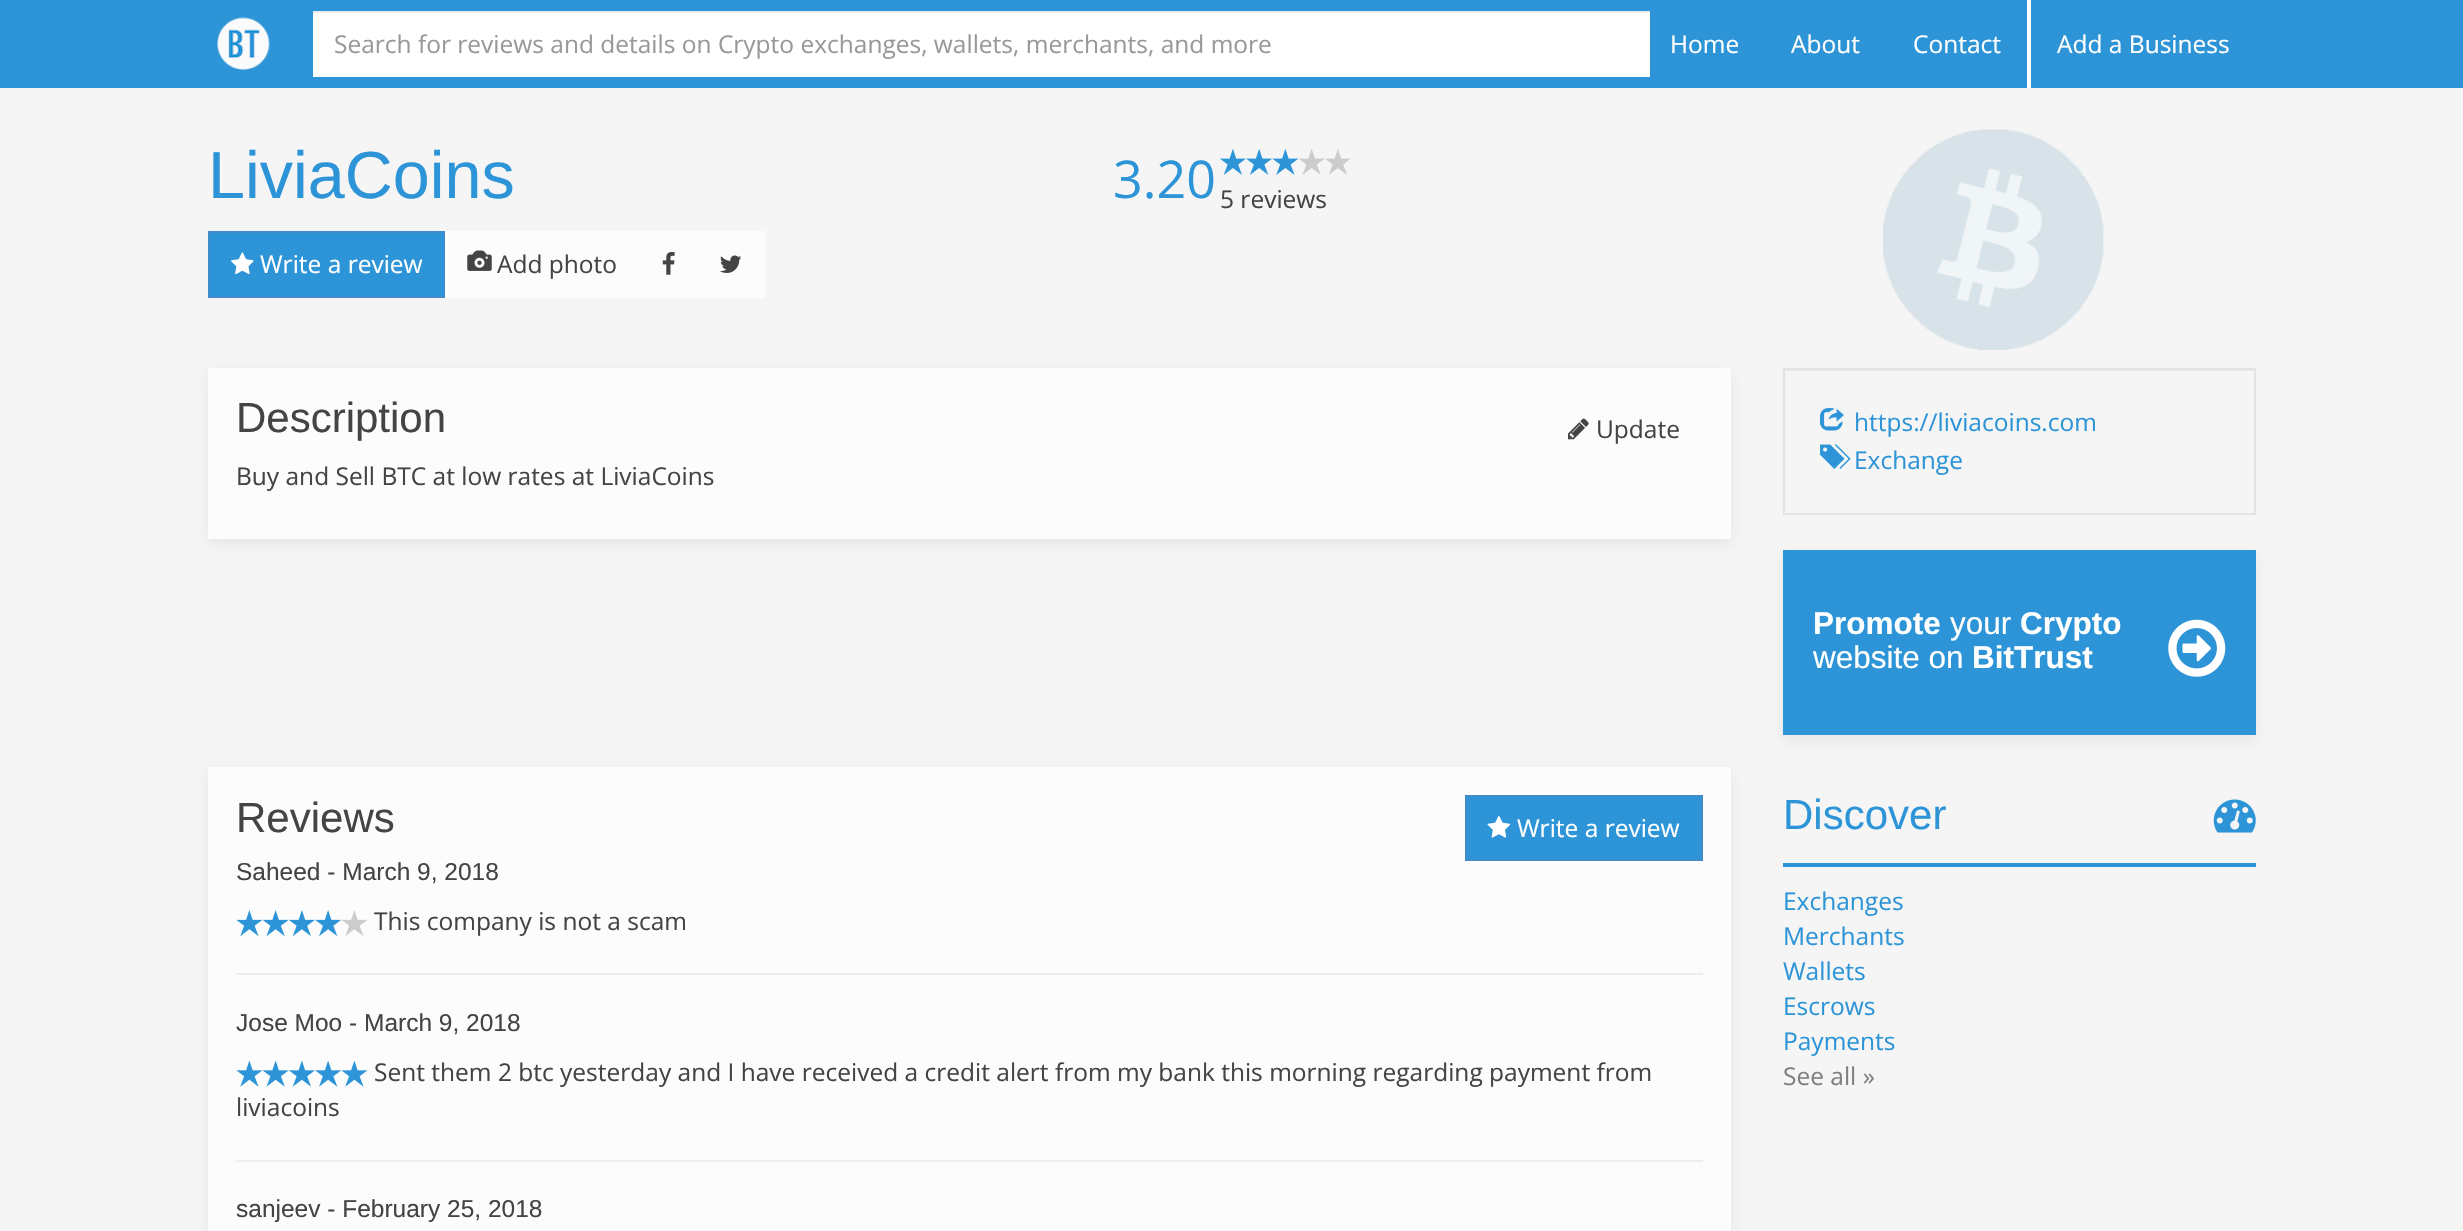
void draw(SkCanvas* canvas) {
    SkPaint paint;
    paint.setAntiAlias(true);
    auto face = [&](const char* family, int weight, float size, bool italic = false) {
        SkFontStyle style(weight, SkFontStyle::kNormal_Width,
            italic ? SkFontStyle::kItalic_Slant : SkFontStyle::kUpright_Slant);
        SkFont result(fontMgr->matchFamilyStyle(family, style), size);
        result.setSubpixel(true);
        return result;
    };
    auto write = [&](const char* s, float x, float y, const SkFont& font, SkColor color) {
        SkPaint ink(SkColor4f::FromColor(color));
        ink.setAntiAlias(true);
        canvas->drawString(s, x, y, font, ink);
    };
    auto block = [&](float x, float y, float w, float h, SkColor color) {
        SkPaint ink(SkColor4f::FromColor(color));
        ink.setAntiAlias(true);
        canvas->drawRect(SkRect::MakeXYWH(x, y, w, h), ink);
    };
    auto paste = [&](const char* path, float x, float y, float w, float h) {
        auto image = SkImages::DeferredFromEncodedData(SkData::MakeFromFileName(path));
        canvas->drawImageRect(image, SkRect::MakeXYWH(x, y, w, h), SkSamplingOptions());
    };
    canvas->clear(SkColorSetRGB(245, 245, 245));
    block(0, 0, 2463, 88, SkColorSetRGB(45, 149, 215));
    paste("pic1.png", 217, 17, 53, 53);
    block(313, 13, 1337, 64, SK_ColorWHITE);
    block(313, 11, 1337, 2, SkColorSetRGB(236, 236, 236));
    auto kFont1 = face("Open Sans", 400, 24.5f);
    write("Search for reviews and details on Crypto exchanges, wallets, merchants, and more", 334, 53, kFont1, SkColorSetRGB(153, 153, 153));
    write("Home", 1670, 53, kFont1, SK_ColorWHITE);
    write("About", 1791, 53, kFont1, SK_ColorWHITE);
    write("Contact", 1913, 53, kFont1, SK_ColorWHITE);
    block(2027, 0, 4, 88, SK_ColorWHITE);
    write("Add a Business", 2057, 53, kFont1, SK_ColorWHITE);
    auto kFont2 = face("Liberation Sans", 400, 66.5f);
    write("LiviaCoins", 208, 198, kFont2, SkColorSetRGB(45, 149, 215));
    paint.setColor(SkColorSetRGB(45, 149, 215));
    canvas->drawRect(SkRect::MakeXYWH(209, 232, 236, 65), paint);
    paint.setStyle(SkPaint::kStroke_Style);
    paint.setStrokeWidth(2);
    paint.setColor(SkColorSetRGB(66, 139, 202));
    canvas->drawRect(SkRect::MakeXYWH(209, 232, 236, 65), paint);
    paste("pic2.png", 231, 252, 23, 23);
    write("Write a review", 260, 273, kFont1, SK_ColorWHITE);
    block(445, 231, 320, 67, SkColorSetRGB(252, 252, 252));
    paste("pic3.png", 467, 250, 25, 21);
    write("Add photo", 497, 273, kFont1, SkColorSetRGB(68, 68, 68));
    paste("pic4.png", 662, 252, 13, 23);
    paste("pic5.png", 720, 255, 22, 18);
    auto kFont3 = face("Open Sans", 400, 52);
    write("3.20", 1113, 198, kFont3, SkColorSetRGB(45, 149, 215));
    paste("pic6.png", 1220, 149, 26, 26);
    paste("pic7.png", 1246, 149, 26, 26);
    paste("pic8.png", 1272, 149, 27, 26);
    paste("pic9.png", 1299, 149, 26, 26);
    paste("pic10.png", 1325, 149, 26, 26);
    write("5 reviews", 1220, 208, kFont1, SkColorSetRGB(68, 68, 68));
    paste("pic11.png", 1883, 129, 221, 221);
    paint.setStyle(SkPaint::kFill_Style);
    paint.setColor(SkColorSetARGB(15, 0, 0, 0));
    paint.setMaskFilter(SkMaskFilter::MakeBlur(kNormal_SkBlurStyle, 6));
    canvas->drawRect(SkRect::MakeXYWH(208, 373, 1523, 171), paint);
    paint.setMaskFilter(nullptr);
    block(208, 368, 1523, 171, SkColorSetRGB(252, 252, 252));
    auto kFont4 = face("Liberation Sans", 400, 42);
    write("Description", 236, 432, kFont4, SkColorSetRGB(68, 68, 68));
    paste("pic12.png", 1568, 418, 21, 22);
    write("Update", 1596, 438, kFont1, SkColorSetRGB(68, 68, 68));
    write("Buy and Sell BTC at low rates at LiviaCoins", 236, 485, kFont1, SkColorSetRGB(68, 68, 68));
    paint.setMaskFilter(SkMaskFilter::MakeBlur(kNormal_SkBlurStyle, 6));
    canvas->drawRect(SkRect::MakeXYWH(208, 772, 1523, 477), paint);
    paint.setMaskFilter(nullptr);
    block(208, 767, 1523, 464, SkColorSetRGB(252, 252, 252));
    write("Reviews", 236, 832, kFont4, SkColorSetRGB(68, 68, 68));
    paint.setColor(SkColorSetRGB(45, 149, 215));
    canvas->drawRect(SkRect::MakeXYWH(1466, 796, 236, 64), paint);
    paint.setStyle(SkPaint::kStroke_Style);
    paint.setColor(SkColorSetRGB(66, 139, 202));
    canvas->drawRect(SkRect::MakeXYWH(1466, 796, 236, 64), paint);
    paste("pic13.png", 1487, 816, 24, 22);
    write("Write a review", 1517, 837, kFont1, SK_ColorWHITE);
    auto kFont5 = face("Liberation Sans", 400, 24.5f);
    write("Saheed - March 9, 2018", 236, 880, kFont5, SkColorSetRGB(68, 68, 68));
    paste("pic14.png", 236, 910, 27, 26);
    paste("pic15.png", 263, 910, 26, 26);
    paste("pic16.png", 289, 910, 26, 26);
    paste("pic17.png", 315, 910, 26, 26);
    paste("pic18.png", 341, 910, 26, 26);
    write("This company is not a scam", 374, 930, kFont1, SkColorSetRGB(68, 68, 68));
    block(236, 973, 1467, 2, SkColorSetRGB(238, 238, 238));
    write("Jose Moo - March 9, 2018", 236, 1031, kFont5, SkColorSetRGB(68, 68, 68));
    paste("pic19.png", 236, 1061, 27, 26);
    paste("pic20.png", 263, 1061, 26, 26);
    paste("pic21.png", 289, 1061, 26, 26);
    paste("pic22.png", 315, 1061, 26, 26);
    paste("pic19.png", 341, 1061, 27, 26);
    write("Sent them 2 btc yesterday and I have received a credit alert from my bank this morning regarding payment from", 374, 1081, kFont1, SkColorSetRGB(68, 68, 68));
    write("liviacoins", 236, 1116, kFont1, SkColorSetRGB(68, 68, 68));
    block(236, 1160, 1467, 2, SkColorSetRGB(238, 238, 238));
    write("sanjeev - February 25, 2018", 236, 1217, kFont5, SkColorSetRGB(68, 68, 68));
    block(1785, 370, 469, 1, SkColorSetRGB(233, 233, 233));
    paint.setColor(SkColorSetRGB(227, 227, 227));
    canvas->drawRect(SkRect::MakeXYWH(1784, 369, 471, 145), paint);
    paste("pic23.png", 1820, 408, 24, 23);
    write("https://liviacoins.com", 1854, 431, kFont1, SkColorSetRGB(45, 149, 215));
    paste("pic24.png", 1820, 444, 31, 25);
    write("Exchange", 1854, 469, kFont1, SkColorSetRGB(45, 149, 215));
    paint.setStyle(SkPaint::kFill_Style);
    paint.setColor(SkColorSetARGB(15, 0, 0, 0));
    paint.setMaskFilter(SkMaskFilter::MakeBlur(kNormal_SkBlurStyle, 6));
    canvas->drawRect(SkRect::MakeXYWH(1783, 555, 473, 185), paint);
    paint.setMaskFilter(nullptr);
    block(1783, 550, 473, 185, SkColorSetRGB(45, 149, 215));
    auto kFont6 = face("Liberation Sans", 700, 31.5f);
    write("Promote", 1813, 634, kFont6, SK_ColorWHITE);
    auto kFont7 = face("Liberation Sans", 400, 31.5f);
    write("your", 1950, 634, kFont7, SK_ColorWHITE);
    write("Crypto", 2020, 634, kFont6, SK_ColorWHITE);
    write("website on", 1813, 668, kFont7, SK_ColorWHITE);
    write("BitTrust", 1972, 668, kFont6, SK_ColorWHITE);
    paste("pic25.png", 2168, 619, 58, 58);
    block(1783, 863, 473, 4, SkColorSetRGB(45, 149, 215));
    write("Discover", 1783, 829, kFont4, SkColorSetRGB(45, 149, 215));
    paste("pic26.png", 2213, 799, 43, 34);
    write("Exchanges", 1783, 910, kFont1, SkColorSetRGB(45, 149, 215));
    write("Merchants", 1783, 945, kFont1, SkColorSetRGB(45, 149, 215));
    write("Wallets", 1783, 980, kFont1, SkColorSetRGB(45, 149, 215));
    write("Escrows", 1783, 1015, kFont1, SkColorSetRGB(45, 149, 215));
    write("Payments", 1783, 1050, kFont1, SkColorSetRGB(45, 149, 215));
    write("See all »", 1783, 1085, kFont1, SkColorSetRGB(128, 128, 128));
}
